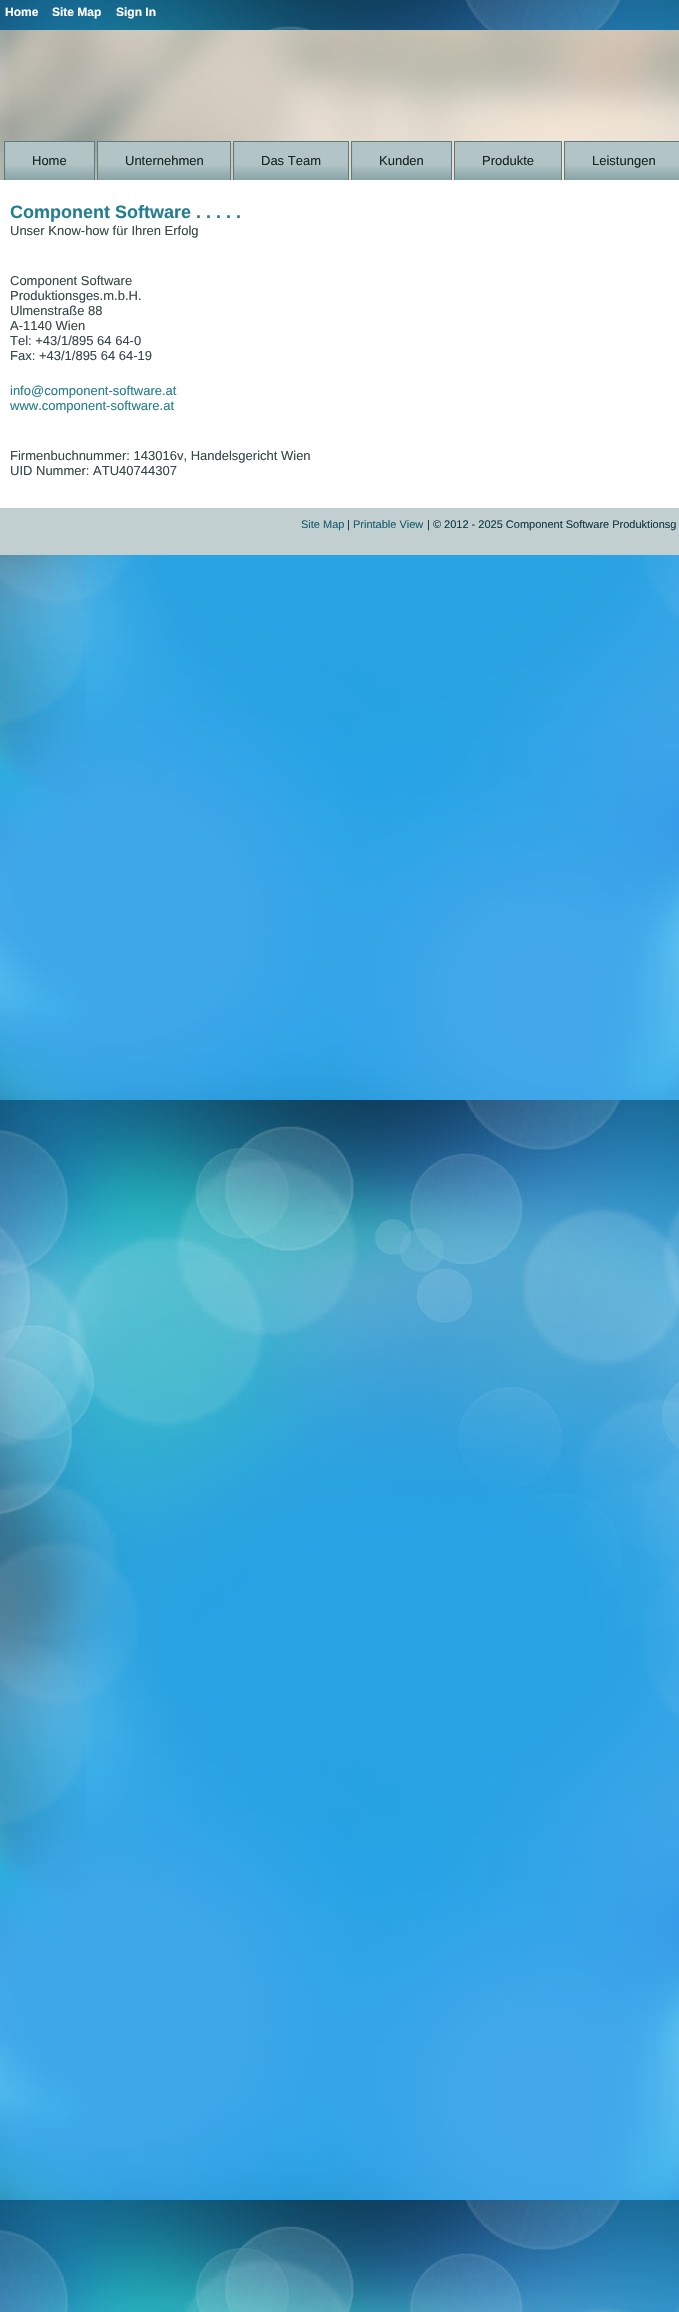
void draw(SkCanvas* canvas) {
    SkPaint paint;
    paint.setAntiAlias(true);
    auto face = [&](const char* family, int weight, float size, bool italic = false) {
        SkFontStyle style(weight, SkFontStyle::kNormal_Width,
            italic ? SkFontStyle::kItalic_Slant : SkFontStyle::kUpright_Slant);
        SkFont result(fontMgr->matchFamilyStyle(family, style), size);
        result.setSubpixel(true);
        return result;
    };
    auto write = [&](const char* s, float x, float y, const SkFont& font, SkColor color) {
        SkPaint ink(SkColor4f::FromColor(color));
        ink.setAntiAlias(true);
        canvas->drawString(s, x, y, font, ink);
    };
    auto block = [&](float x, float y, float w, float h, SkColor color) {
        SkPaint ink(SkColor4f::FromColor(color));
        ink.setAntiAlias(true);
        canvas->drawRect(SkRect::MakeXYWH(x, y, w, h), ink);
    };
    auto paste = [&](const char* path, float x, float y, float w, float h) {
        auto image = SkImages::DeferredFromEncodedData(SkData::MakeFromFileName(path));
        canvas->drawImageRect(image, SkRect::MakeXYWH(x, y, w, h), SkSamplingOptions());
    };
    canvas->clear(SK_ColorWHITE);
    paste("pic1.png", 0, 0, 679, 2312);
    auto kFont1 = face("Liberation Sans", 700, 12);
    write("Home", 5, 16, kFont1, SK_ColorWHITE);
    write("Site Map", 52, 16, kFont1, SK_ColorWHITE);
    write("Sign In", 116, 16, kFont1, SK_ColorWHITE);
    paste("pic2.png", 0, 30, 679, 150);
    paste("pic3.png", 4, 141, 75, 39);
    paste("pic4.png", 79, 141, 16, 39);
    auto kFont2 = face("Liberation Sans", 400, 13);
    write("Home", 32, 165, kFont2, SkColorSetRGB(25, 36, 36));
    paste("pic5.png", 97, 141, 118, 39);
    paste("pic6.png", 215, 141, 16, 39);
    write("Unternehmen", 125, 165, kFont2, SkColorSetRGB(25, 36, 36));
    paste("pic7.png", 233, 141, 100, 39);
    paste("pic8.png", 333, 141, 16, 39);
    write("Das Team", 261, 165, kFont2, SkColorSetRGB(25, 36, 36));
    paste("pic9.png", 351, 141, 85, 39);
    paste("pic8.png", 436, 141, 16, 39);
    write("Kunden", 379, 165, kFont2, SkColorSetRGB(25, 36, 36));
    paste("pic10.png", 454, 141, 92, 39);
    paste("pic11.png", 546, 141, 16, 39);
    write("Produkte", 482, 165, kFont2, SkColorSetRGB(25, 36, 36));
    paste("pic12.png", 564, 141, 104, 39);
    paste("pic13.png", 668, 141, 11, 39);
    write("Leistungen", 592, 165, kFont2, SkColorSetRGB(25, 36, 36));
    block(0, 180, 679, 328, SK_ColorWHITE);
    auto kFont3 = face("Liberation Sans", 700, 18);
    write("Component Software . . . . .", 10, 218, kFont3, SkColorSetRGB(35, 126, 144));
    write("Unser Know-how für Ihren Erfolg", 10, 235, kFont2, SkColorSetRGB(54, 71, 73));
    write("Component Software", 10, 285, kFont2, SkColorSetRGB(54, 71, 73));
    write("Produktionsges.m.b.H.", 10, 300, kFont2, SkColorSetRGB(54, 71, 73));
    write("Ulmenstraße 88", 10, 315, kFont2, SkColorSetRGB(54, 71, 73));
    write("A-1140 Wien", 10, 330, kFont2, SkColorSetRGB(54, 71, 73));
    write("Tel: +43/1/895 64 64-0", 10, 345, kFont2, SkColorSetRGB(54, 71, 73));
    write("Fax: +43/1/895 64 64-19", 10, 360, kFont2, SkColorSetRGB(54, 71, 73));
    write("info@component-software.at", 10, 395, kFont2, SkColorSetRGB(35, 126, 144));
    write("www.component-software.at", 10, 410, kFont2, SkColorSetRGB(35, 126, 144));
    write("Firmenbuchnummer: 143016v, Handelsgericht Wien", 10, 460, kFont2, SkColorSetRGB(54, 71, 73));
    write("UID Nummer: ATU40744307", 10, 475, kFont2, SkColorSetRGB(54, 71, 73));
    block(0, 508, 679, 47, SkColorSetRGB(193, 207, 209));
    auto kFont4 = face("Liberation Sans", 400, 11);
    write("Site Map", 301, 528, kFont4, SkColorSetRGB(26, 93, 107));
    write("|", 347, 528, kFont4, SkColorSetRGB(16, 57, 66));
    write("Printable View", 353, 528, kFont4, SkColorSetRGB(26, 93, 107));
    write("| © 2012 - 2025 Component Software Produktionsg", 427, 528, kFont4, SkColorSetRGB(16, 57, 66));
}
